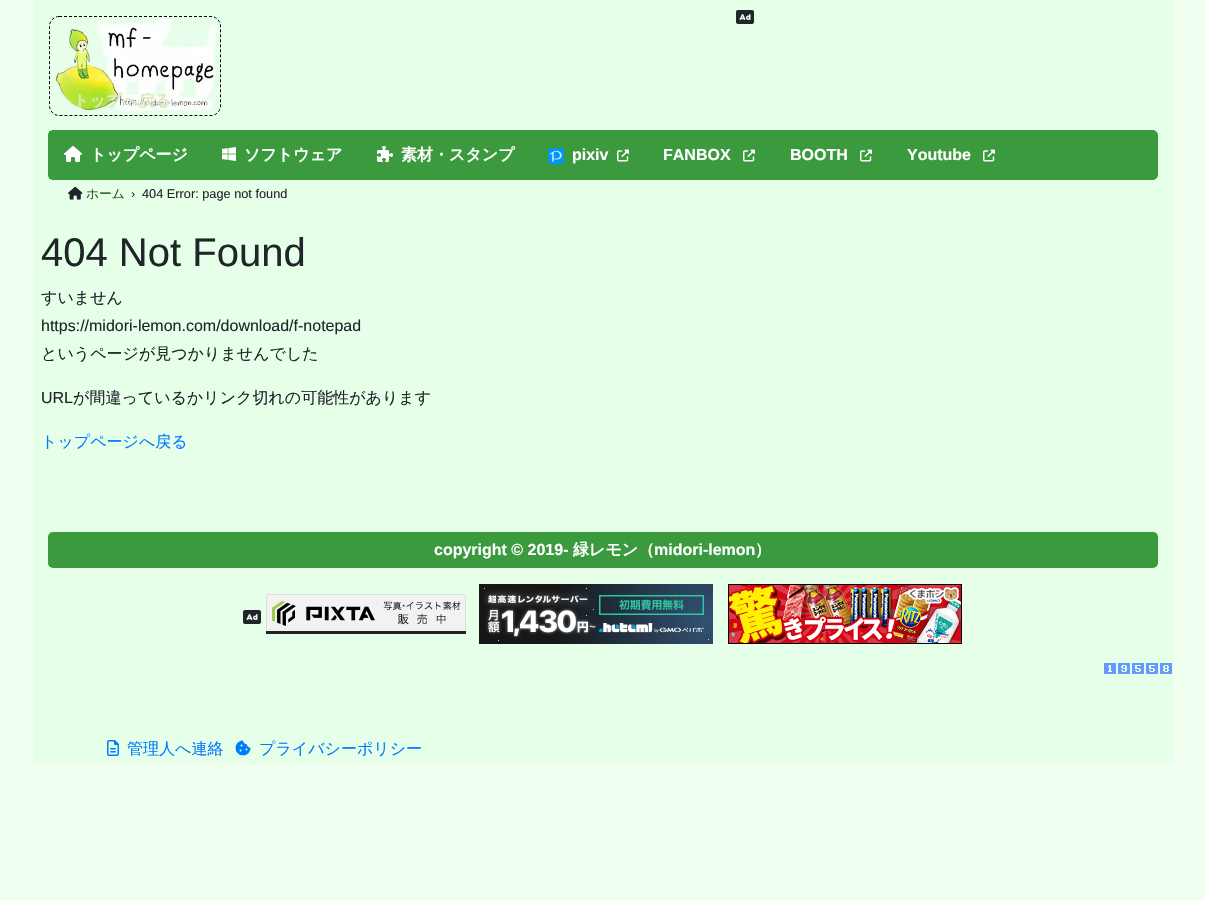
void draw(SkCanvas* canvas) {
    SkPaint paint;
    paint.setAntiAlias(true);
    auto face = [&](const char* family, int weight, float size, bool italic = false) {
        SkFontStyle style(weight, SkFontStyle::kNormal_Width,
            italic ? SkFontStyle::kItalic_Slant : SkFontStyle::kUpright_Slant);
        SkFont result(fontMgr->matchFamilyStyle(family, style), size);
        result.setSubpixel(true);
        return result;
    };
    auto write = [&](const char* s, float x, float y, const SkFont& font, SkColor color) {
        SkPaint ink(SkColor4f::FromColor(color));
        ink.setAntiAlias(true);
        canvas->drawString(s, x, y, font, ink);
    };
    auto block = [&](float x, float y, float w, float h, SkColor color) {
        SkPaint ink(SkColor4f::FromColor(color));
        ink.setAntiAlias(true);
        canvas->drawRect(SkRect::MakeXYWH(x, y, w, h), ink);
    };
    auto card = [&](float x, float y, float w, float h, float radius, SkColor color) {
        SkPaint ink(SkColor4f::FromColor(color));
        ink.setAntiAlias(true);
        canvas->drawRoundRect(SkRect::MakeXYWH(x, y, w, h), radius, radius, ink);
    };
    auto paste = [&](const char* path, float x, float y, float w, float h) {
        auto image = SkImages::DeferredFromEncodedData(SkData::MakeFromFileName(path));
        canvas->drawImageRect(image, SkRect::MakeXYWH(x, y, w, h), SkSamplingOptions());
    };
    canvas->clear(SkColorSetRGB(240, 255, 240));
    block(33, 0, 1140, 763, SkColorSetRGB(230, 255, 233));
    paste("pic1.png", 736, 10, 18, 14);
    paint.setStyle(SkPaint::kStroke_Style);
    paint.setStrokeWidth(1);
    paint.setColor(SK_ColorBLACK);
    paint.setPathEffect(SkDashPathEffect::Make({{3, 2}}, 0));
    canvas->drawPath(SkPathBuilder().moveTo(59, 16.5f).lineTo(211, 16.5f).cubicTo(216, 16.5f, 220.5f, 21, 220.5f, 26).lineTo(220.5f, 106).cubicTo(220.5f, 111, 216, 115.5f, 211, 115.5f).lineTo(59, 115.5f).cubicTo(54, 115.5f, 49.5f, 111, 49.5f, 106).lineTo(49.5f, 26).cubicTo(49.5f, 21, 54, 16.5f, 59, 16.5f).close().detach(), paint);
    paint.setPathEffect(nullptr);
    paste("pic2.png", 54, 19, 164, 93);
    auto kFont1 = face("WenQuanYi Zen Hei", 700, 16);
    write("トップへ戻る", 73, 106, kFont1, SkColorSetRGB(219, 234, 190));
    paint.setStyle(SkPaint::kFill_Style);
    paint.setColor(SkColorSetRGB(59, 153, 62));
    canvas->drawRoundRect(SkRect::MakeXYWH(48.5f, 130.5f, 1109, 49), 4.5f, 4.5f, paint);
    paint.setStyle(SkPaint::kStroke_Style);
    canvas->drawRoundRect(SkRect::MakeXYWH(48.5f, 130.5f, 1109, 49), 4.5f, 4.5f, paint);
    block(49, 131, 1, 48, SkColorSetRGB(59, 153, 62));
    paste("pic3.png", 64, 146, 18, 16);
    write("トップページ", 90, 160, kFont1, SK_ColorWHITE);
    paste("pic4.png", 222, 147, 14, 14);
    write("ソフトウェア", 244, 160, kFont1, SK_ColorWHITE);
    paste("pic5.png", 377, 146, 16, 16);
    write("素材・スタンプ", 401, 160, kFont1, SK_ColorWHITE);
    paste("pic6.png", 548, 148, 16, 16);
    auto kFont2 = face("Liberation Sans", 700, 16);
    write("pixiv", 572, 160, kFont2, SK_ColorWHITE);
    paste("pic7.png", 617, 149, 12, 13);
    write("FANBOX", 663, 160, kFont2, SK_ColorWHITE);
    paste("pic7.png", 743, 149, 12, 13);
    write("BOOTH", 790, 160, kFont2, SK_ColorWHITE);
    paste("pic7.png", 860, 149, 12, 13);
    write("Youtube", 907, 160, kFont2, SK_ColorWHITE);
    paste("pic7.png", 983, 149, 12, 13);
    paste("pic8.png", 68, 186, 15, 14);
    auto kFont3 = face("WenQuanYi Zen Hei", 500, 12.75f);
    write("ホーム", 86, 198, kFont3, SkColorSetRGB(30, 89, 25));
    auto kFont4 = face("Liberation Sans", 400, 12.75f);
    write("›", 131, 198, kFont4, SkColorSetRGB(33, 37, 41));
    write("404 Error: page not found", 142, 198, kFont4, SkColorSetRGB(33, 37, 41));
    auto kFont5 = face("Liberation Sans", 400, 40);
    write("404 Not Found", 41, 266, kFont5, SkColorSetRGB(33, 37, 41));
    auto kFont6 = face("WenQuanYi Zen Hei", 500, 16);
    write("すいません", 41, 303, kFont6, SkColorSetRGB(33, 37, 41));
    auto kFont7 = face("Liberation Sans", 400, 16);
    write("https://midori-lemon.com/download/f-notepad", 41, 331, kFont7, SkColorSetRGB(33, 37, 41));
    write("というページが見つかりませんでした", 41, 359, kFont6, SkColorSetRGB(33, 37, 41));
    write("URL", 41, 403, kFont7, SkColorSetRGB(33, 37, 41));
    write("が間違っているかリンク切れの可能性があります", 73, 403, kFont6, SkColorSetRGB(33, 37, 41));
    write("トップページへ戻る", 41, 447, kFont6, SkColorSetRGB(0, 123, 255));
    card(48, 532, 1110, 36, 5, SkColorSetRGB(59, 153, 62));
    write("copyright © 2019-", 434, 555, kFont2, SK_ColorWHITE);
    write("緑レモン（", 573, 555, kFont1, SK_ColorWHITE);
    write("midori-lemon", 654, 555, kFont2, SK_ColorWHITE);
    write("）", 755, 555, kFont1, SK_ColorWHITE);
    paste("pic1.png", 243, 610, 18, 14);
    paste("pic9.png", 266, 594, 200, 40);
    paste("pic10.png", 479, 584, 234, 60);
    paste("pic11.png", 728, 584, 234, 60);
    paste("pic12.png", 1104, 663, 12, 11);
    paste("pic13.png", 1118, 663, 12, 11);
    paste("pic14.png", 1132, 663, 12, 11);
    paste("pic14.png", 1146, 663, 12, 11);
    paste("pic15.png", 1160, 663, 12, 11);
    paste("pic16.png", 107, 740, 12, 16);
    write("管理人へ連絡", 127, 754, kFont6, SkColorSetRGB(0, 123, 255));
    paste("pic17.png", 235, 740, 16, 16);
    write("プライバシーポリシー", 259, 754, kFont6, SkColorSetRGB(0, 123, 255));
}
